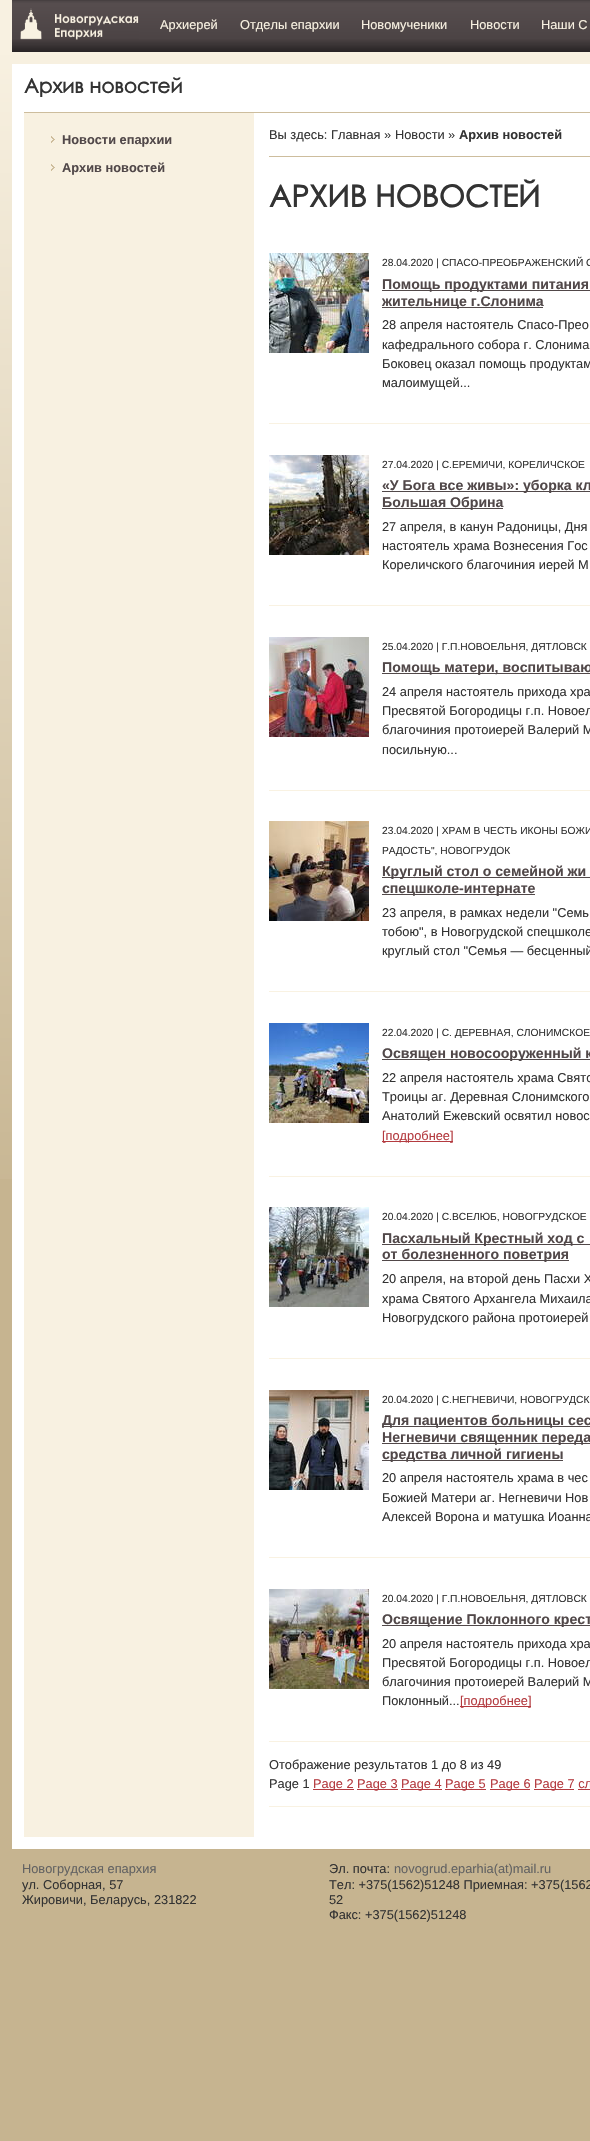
void draw(SkCanvas* canvas) {
    SkPaint paint;
    paint.setAntiAlias(true);
    auto face = [&](const char* family, int weight, float size, bool italic = false) {
        SkFontStyle style(weight, SkFontStyle::kNormal_Width,
            italic ? SkFontStyle::kItalic_Slant : SkFontStyle::kUpright_Slant);
        SkFont result(fontMgr->matchFamilyStyle(family, style), size);
        result.setSubpixel(true);
        return result;
    };
    auto write = [&](const char* s, float x, float y, const SkFont& font, SkColor color) {
        SkPaint ink(SkColor4f::FromColor(color));
        ink.setAntiAlias(true);
        canvas->drawString(s, x, y, font, ink);
    };
    auto block = [&](float x, float y, float w, float h, SkColor color) {
        SkPaint ink(SkColor4f::FromColor(color));
        ink.setAntiAlias(true);
        canvas->drawRect(SkRect::MakeXYWH(x, y, w, h), ink);
    };
    auto paste = [&](const char* path, float x, float y, float w, float h) {
        auto image = SkImages::DeferredFromEncodedData(SkData::MakeFromFileName(path));
        canvas->drawImageRect(image, SkRect::MakeXYWH(x, y, w, h), SkSamplingOptions());
    };
    canvas->clear(SkColorSetRGB(198, 180, 144));
    paste("pic1.png", 0, 0, 590, 1179);
    paste("pic2.png", 12, 0, 578, 52);
    paste("pic3.png", 20, 8, 119, 32);
    auto kFont1 = face("Liberation Sans", 400, 12.8f);
    write("Архиерей", 160, 29, kFont1, SkColorSetRGB(248, 241, 225));
    write("Отделы епархии", 240, 29, kFont1, SkColorSetRGB(248, 241, 225));
    write("Новомученики", 361, 29, kFont1, SkColorSetRGB(248, 241, 225));
    write("Новости", 470, 29, kFont1, SkColorSetRGB(248, 241, 225));
    write("Наши С", 541, 29, kFont1, SkColorSetRGB(248, 241, 225));
    block(12, 64, 578, 1785, SK_ColorWHITE);
    auto kFont2 = face("Century Gothic", 700, 20);
    write("Архив новостей", 24, 93, kFont2, SkColorSetRGB(51, 51, 51));
    block(24, 112, 566, 1, SkColorSetRGB(205, 189, 157));
    block(24, 113, 230, 1724, SkColorSetRGB(248, 241, 225));
    paste("pic4.png", 51, 136, 4, 7);
    auto kFont3 = face("Liberation Sans", 700, 12.8f);
    write("Новости епархии", 62, 144, kFont3, SkColorSetRGB(81, 72, 73));
    paste("pic4.png", 51, 164, 4, 7);
    write("Архив новостей", 62, 172, kFont3, SkColorSetRGB(81, 72, 73));
    block(269, 156, 321, 1, SkColorSetRGB(205, 189, 157));
    write("Вы здесь:", 269, 139, kFont1, SkColorSetRGB(51, 51, 51));
    write("Главная", 331, 139, kFont1, SkColorSetRGB(51, 51, 51));
    write("»", 384, 139, kFont1, SkColorSetRGB(51, 51, 51));
    write("Новости", 395, 139, kFont1, SkColorSetRGB(51, 51, 51));
    write("»", 448, 139, kFont1, SkColorSetRGB(51, 51, 51));
    write("Архив новостей", 459, 139, kFont3, SkColorSetRGB(51, 51, 51));
    auto kFont4 = face("Century Gothic", 700, 30);
    write("АРХИВ НОВОСТЕЙ", 269, 207, kFont4, SkColorSetRGB(51, 51, 51));
    block(269, 423, 321, 1, SkColorSetRGB(249, 242, 226));
    paste("pic5.png", 269, 253, 100, 100);
    auto kFont5 = face("Liberation Sans", 400, 10.25f);
    write("28.04.2020 | СПАСО-ПРЕОБРАЖЕНСКИЙ С", 382, 266, kFont5, SkColorSetRGB(51, 51, 51));
    block(382, 290, 208, 1, SkColorSetRGB(81, 72, 73));
    auto kFont6 = face("Liberation Sans", 700, 14.1f);
    write("Помощь продуктами питания", 382, 289, kFont6, SkColorSetRGB(81, 72, 73));
    block(382, 307, 161, 1, SkColorSetRGB(81, 72, 73));
    write("жительнице г.Слонима", 382, 306, kFont6, SkColorSetRGB(81, 72, 73));
    write("28 апреля настоятель Спасо-Прео", 382, 329, kFont1, SkColorSetRGB(51, 51, 51));
    write("кафедрального собора г. Слонима", 382, 349, kFont1, SkColorSetRGB(51, 51, 51));
    write("Боковец оказал помощь продуктам", 382, 368, kFont1, SkColorSetRGB(51, 51, 51));
    write("малоимущей...", 382, 387, kFont1, SkColorSetRGB(51, 51, 51));
    block(269, 605, 321, 1, SkColorSetRGB(249, 242, 226));
    paste("pic6.png", 269, 455, 100, 100);
    write("27.04.2020 | С.ЕРЕМИЧИ, КОРЕЛИЧСКОЕ", 382, 468, kFont5, SkColorSetRGB(51, 51, 51));
    block(382, 491, 208, 1, SkColorSetRGB(81, 72, 73));
    write("«У Бога все живы»: уборка кл", 382, 490, kFont6, SkColorSetRGB(81, 72, 73));
    block(382, 508, 121, 1, SkColorSetRGB(81, 72, 73));
    write("Большая Обрина", 382, 507, kFont6, SkColorSetRGB(81, 72, 73));
    write("27 апреля, в канун Радоницы, Дня", 382, 531, kFont1, SkColorSetRGB(51, 51, 51));
    write("настоятель храма Вознесения Гос", 382, 550, kFont1, SkColorSetRGB(51, 51, 51));
    write("Кореличского благочиния иерей М", 382, 569, kFont1, SkColorSetRGB(51, 51, 51));
    block(269, 790, 321, 1, SkColorSetRGB(249, 242, 226));
    paste("pic7.png", 269, 637, 100, 100);
    write("25.04.2020 | Г.П.НОВОЕЛЬНЯ, ДЯТЛОВСК", 382, 650, kFont5, SkColorSetRGB(51, 51, 51));
    block(382, 673, 208, 1, SkColorSetRGB(81, 72, 73));
    write("Помощь матери, воспитываю", 382, 672, kFont6, SkColorSetRGB(81, 72, 73));
    write("24 апреля настоятель прихода хра", 382, 696, kFont1, SkColorSetRGB(51, 51, 51));
    write("Пресвятой Богородицы г.п. Новоел", 382, 715, kFont1, SkColorSetRGB(51, 51, 51));
    write("благочиния протоиерей Валерий М", 382, 734, kFont1, SkColorSetRGB(51, 51, 51));
    write("посильную...", 382, 754, kFont1, SkColorSetRGB(51, 51, 51));
    block(269, 991, 321, 1, SkColorSetRGB(249, 242, 226));
    paste("pic8.png", 269, 821, 100, 100);
    write("23.04.2020 | ХРАМ В ЧЕСТЬ ИКОНЫ БОЖИ", 382, 834, kFont5, SkColorSetRGB(51, 51, 51));
    write("РАДОСТЬ\", НОВОГРУДОК", 382, 854, kFont5, SkColorSetRGB(51, 51, 51));
    block(382, 877, 208, 1, SkColorSetRGB(81, 72, 73));
    write("Круглый стол о семейной жи", 382, 876, kFont6, SkColorSetRGB(81, 72, 73));
    block(382, 894, 153, 1, SkColorSetRGB(81, 72, 73));
    write("спецшколе-интернате", 382, 893, kFont6, SkColorSetRGB(81, 72, 73));
    write("23 апреля, в рамках недели \"Семь", 382, 917, kFont1, SkColorSetRGB(51, 51, 51));
    write("тобою\", в Новогрудской спецшколе", 382, 936, kFont1, SkColorSetRGB(51, 51, 51));
    write("круглый стол \"Семья — бесценный", 382, 955, kFont1, SkColorSetRGB(51, 51, 51));
    block(269, 1176, 321, 1, SkColorSetRGB(249, 242, 226));
    paste("pic9.png", 269, 1023, 100, 100);
    write("22.04.2020 | С. ДЕРЕВНАЯ, СЛОНИМСКОЕ", 382, 1036, kFont5, SkColorSetRGB(51, 51, 51));
    block(382, 1059, 208, 1, SkColorSetRGB(81, 72, 73));
    write("Освящен новосооруженный к", 382, 1058, kFont6, SkColorSetRGB(81, 72, 73));
    write("22 апреля настоятель храма Свято", 382, 1082, kFont1, SkColorSetRGB(51, 51, 51));
    write("Троицы аг. Деревная Слонимского", 382, 1101, kFont1, SkColorSetRGB(51, 51, 51));
    write("Анатолий Ежевский освятил новос", 382, 1120, kFont1, SkColorSetRGB(51, 51, 51));
    block(382, 1141, 71, 1, SkColorSetRGB(180, 59, 64));
    write("[подробнее]", 382, 1140, kFont1, SkColorSetRGB(180, 59, 64));
    block(269, 1358, 321, 1, SkColorSetRGB(249, 242, 226));
    paste("pic10.png", 269, 1207, 100, 100);
    write("20.04.2020 | С.ВСЕЛЮБ, НОВОГРУДСКОЕ", 382, 1220, kFont5, SkColorSetRGB(51, 51, 51));
    block(382, 1244, 208, 1, SkColorSetRGB(81, 72, 73));
    write("Пасхальный Крестный ход с", 382, 1243, kFont6, SkColorSetRGB(81, 72, 73));
    block(382, 1260, 187, 1, SkColorSetRGB(81, 72, 73));
    write("от болезненного поветрия", 382, 1259, kFont6, SkColorSetRGB(81, 72, 73));
    write("20 апреля, на второй день Пасхи Х", 382, 1283, kFont1, SkColorSetRGB(51, 51, 51));
    write("храма Святого Архангела Михаила", 382, 1303, kFont1, SkColorSetRGB(51, 51, 51));
    write("Новогрудского района протоиерей", 382, 1322, kFont1, SkColorSetRGB(51, 51, 51));
    block(269, 1557, 321, 1, SkColorSetRGB(249, 242, 226));
    paste("pic11.png", 269, 1390, 100, 100);
    write("20.04.2020 | С.НЕГНЕВИЧИ, НОВОГРУДСК", 382, 1403, kFont5, SkColorSetRGB(51, 51, 51));
    block(382, 1426, 208, 1, SkColorSetRGB(81, 72, 73));
    write("Для пациентов больницы сес", 382, 1425, kFont6, SkColorSetRGB(81, 72, 73));
    block(382, 1443, 208, 1, SkColorSetRGB(81, 72, 73));
    write("Негневичи священник переда", 382, 1442, kFont6, SkColorSetRGB(81, 72, 73));
    block(382, 1460, 181, 1, SkColorSetRGB(81, 72, 73));
    write("средства личной гигиены", 382, 1459, kFont6, SkColorSetRGB(81, 72, 73));
    write("20 апреля настоятель храма в чес", 382, 1482, kFont1, SkColorSetRGB(51, 51, 51));
    write("Божией Матери аг. Негневичи Нов", 382, 1502, kFont1, SkColorSetRGB(51, 51, 51));
    write("Алексей Ворона и матушка Иоанна", 382, 1521, kFont1, SkColorSetRGB(51, 51, 51));
    block(269, 1741, 321, 1, SkColorSetRGB(249, 242, 226));
    paste("pic12.png", 269, 1589, 100, 100);
    write("20.04.2020 | Г.П.НОВОЕЛЬНЯ, ДЯТЛОВСК", 382, 1602, kFont5, SkColorSetRGB(51, 51, 51));
    block(382, 1625, 208, 1, SkColorSetRGB(81, 72, 73));
    write("Освящение Поклонного крест", 382, 1624, kFont6, SkColorSetRGB(81, 72, 73));
    write("20 апреля настоятель прихода хра", 382, 1648, kFont1, SkColorSetRGB(51, 51, 51));
    write("Пресвятой Богородицы г.п. Новоел", 382, 1667, kFont1, SkColorSetRGB(51, 51, 51));
    write("благочиния протоиерей Валерий М", 382, 1686, kFont1, SkColorSetRGB(51, 51, 51));
    write("Поклонный...", 382, 1705, kFont1, SkColorSetRGB(51, 51, 51));
    block(460, 1706, 71, 1, SkColorSetRGB(180, 59, 64));
    write("[подробнее]", 460, 1705, kFont1, SkColorSetRGB(180, 59, 64));
    block(269, 1806, 321, 1, SkColorSetRGB(249, 242, 226));
    write("Отображение результатов 1 до 8 из 49", 269, 1769, kFont1, SkColorSetRGB(51, 51, 51));
    write("Page 1", 269, 1788, kFont1, SkColorSetRGB(51, 51, 51));
    block(313, 1789, 41, 1, SkColorSetRGB(180, 59, 64));
    write("Page 2", 313, 1788, kFont1, SkColorSetRGB(180, 59, 64));
    block(357, 1789, 41, 1, SkColorSetRGB(180, 59, 64));
    write("Page 3", 357, 1788, kFont1, SkColorSetRGB(180, 59, 64));
    block(401, 1789, 41, 1, SkColorSetRGB(180, 59, 64));
    write("Page 4", 401, 1788, kFont1, SkColorSetRGB(180, 59, 64));
    block(445, 1789, 41, 1, SkColorSetRGB(180, 59, 64));
    write("Page 5", 445, 1788, kFont1, SkColorSetRGB(180, 59, 64));
    block(490, 1789, 40, 1, SkColorSetRGB(180, 59, 64));
    write("Page 6", 490, 1788, kFont1, SkColorSetRGB(180, 59, 64));
    block(534, 1789, 40, 1, SkColorSetRGB(180, 59, 64));
    write("Page 7 сл", 534, 1788, kFont1, SkColorSetRGB(180, 59, 64));
    block(578, 1789, 12, 1, SkColorSetRGB(180, 59, 64));
    write("Новогрудская епархия", 22, 1873, kFont1, SkColorSetRGB(98, 98, 98));
    write("ул. Соборная, 57", 22, 1889, kFont1, SkColorSetRGB(51, 51, 51));
    write("Жировичи, Беларусь, 231822", 22, 1904, kFont1, SkColorSetRGB(51, 51, 51));
    write("Эл. почта:", 329, 1873, kFont1, SkColorSetRGB(51, 51, 51));
    write("novogrud.eparhia(at)mail.ru", 394, 1873, kFont1, SkColorSetRGB(98, 98, 98));
    write("Тел: +375(1562)51248 Приемная: +375(1562", 329, 1889, kFont1, SkColorSetRGB(51, 51, 51));
    write("52", 329, 1904, kFont1, SkColorSetRGB(51, 51, 51));
    write("Факс: +375(1562)51248", 329, 1919, kFont1, SkColorSetRGB(51, 51, 51));
}
